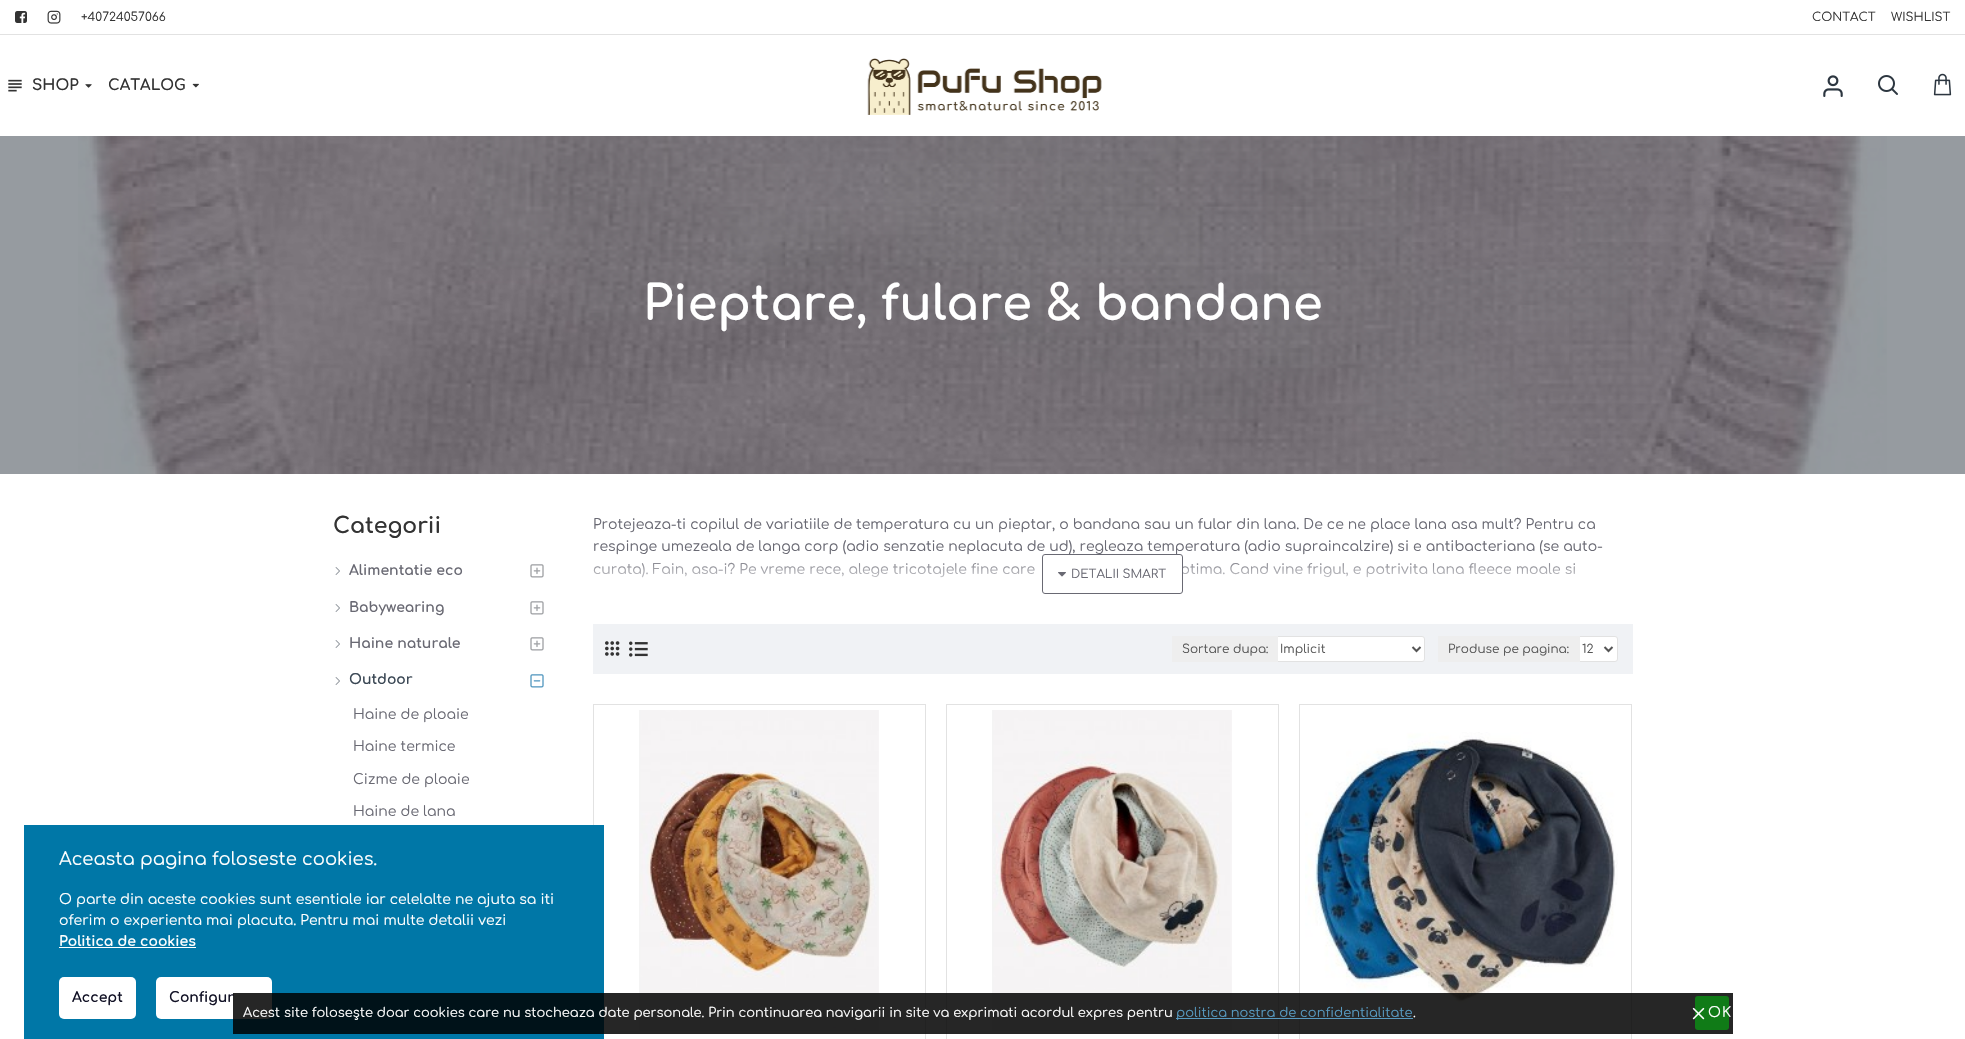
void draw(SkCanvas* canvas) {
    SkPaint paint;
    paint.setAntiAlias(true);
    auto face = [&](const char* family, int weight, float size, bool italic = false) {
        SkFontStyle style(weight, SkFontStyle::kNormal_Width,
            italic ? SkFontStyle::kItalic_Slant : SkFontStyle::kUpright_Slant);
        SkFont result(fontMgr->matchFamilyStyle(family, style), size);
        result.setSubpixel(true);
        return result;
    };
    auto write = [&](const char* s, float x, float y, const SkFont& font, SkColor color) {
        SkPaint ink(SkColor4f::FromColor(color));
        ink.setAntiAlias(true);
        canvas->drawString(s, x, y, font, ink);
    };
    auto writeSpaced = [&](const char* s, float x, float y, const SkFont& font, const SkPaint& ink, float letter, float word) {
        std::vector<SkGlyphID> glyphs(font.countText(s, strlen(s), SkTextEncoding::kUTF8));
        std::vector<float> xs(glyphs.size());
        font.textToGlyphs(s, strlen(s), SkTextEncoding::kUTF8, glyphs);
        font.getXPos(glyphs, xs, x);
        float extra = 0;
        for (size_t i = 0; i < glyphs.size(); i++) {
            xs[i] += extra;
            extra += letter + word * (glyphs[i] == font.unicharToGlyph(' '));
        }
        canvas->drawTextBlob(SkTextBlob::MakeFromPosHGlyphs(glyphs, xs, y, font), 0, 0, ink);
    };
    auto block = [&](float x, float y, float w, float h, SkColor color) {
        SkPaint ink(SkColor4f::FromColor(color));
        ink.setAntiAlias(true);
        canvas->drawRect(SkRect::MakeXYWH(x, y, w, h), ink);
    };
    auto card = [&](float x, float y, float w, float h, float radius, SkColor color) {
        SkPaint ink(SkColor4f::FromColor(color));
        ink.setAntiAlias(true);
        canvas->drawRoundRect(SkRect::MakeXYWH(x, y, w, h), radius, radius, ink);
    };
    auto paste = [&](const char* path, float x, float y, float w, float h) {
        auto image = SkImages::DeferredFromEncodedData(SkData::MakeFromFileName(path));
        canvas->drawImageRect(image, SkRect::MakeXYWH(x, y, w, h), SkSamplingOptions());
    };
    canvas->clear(SK_ColorWHITE);
    block(0, 136, 1965, 338, SkColorSetRGB(150, 155, 160));
    paste("pic1.png", 15, 11, 12, 12);
    paste("pic2.png", 47, 10, 14, 14);
    auto kFont1 = face("Comfortaa", 400, 12);
    write("+40724057066", 81, 21, kFont1, SkColorSetRGB(51, 51, 51));
    write("CONTACT", 1812, 21, kFont1, SkColorSetRGB(51, 51, 51));
    write("WISHLIST", 1891, 21, kFont1, SkColorSetRGB(51, 51, 51));
    paste("pic3.png", 8, 79, 14, 13);
    auto kFont2 = face("Comfortaa", 700, 15);
    write("SHOP", 32, 90, kFont2, SkColorSetRGB(51, 51, 51));
    paste("pic4.png", 85, 84, 7, 4);
    write("CATALOG", 108, 90, kFont2, SkColorSetRGB(51, 51, 51));
    paste("pic5.png", 192, 83, 7, 5);
    paste("pic6.png", 867, 58, 235, 57);
    paste("pic7.png", 1823, 75, 20, 22);
    paste("pic8.png", 1878, 75, 20, 20);
    paste("pic9.png", 1933, 73, 19, 23);
    block(0, 34, 1965, 1, SkColorSetRGB(226, 226, 226));
    paste("pic10.png", 78, 136, 1809, 338);
    paste("pic11.png", 92, 136, 1769, 338);
    auto kFont3 = face("Comfortaa", 700, 48);
    write("Pieptare, fulare & bandane", 643, 320, kFont3, SK_ColorWHITE);
    auto kFont4 = face("Comfortaa", 700, 22);
    write("Categorii", 333, 533, kFont4, SkColorSetRGB(51, 51, 51));
    paste("pic12.png", 335, 567, 5, 8);
    auto kFont5 = face("Comfortaa", 700, 14);
    write("Alimentatie eco", 349, 575, kFont5, SkColorSetRGB(105, 105, 115));
    paste("pic13.png", 530, 564, 14, 14);
    paste("pic12.png", 335, 604, 5, 8);
    write("Babywearing", 349, 612, kFont5, SkColorSetRGB(105, 105, 115));
    paste("pic13.png", 530, 601, 14, 14);
    paste("pic12.png", 335, 640, 5, 8);
    write("Haine naturale", 349, 648, kFont5, SkColorSetRGB(105, 105, 115));
    paste("pic13.png", 530, 637, 14, 14);
    paste("pic12.png", 335, 677, 5, 8);
    write("Outdoor", 349, 684, kFont5, SkColorSetRGB(58, 71, 84));
    paste("pic14.png", 530, 674, 14, 14);
    auto kFont6 = face("Comfortaa", 400, 14);
    write("Haine de ploaie", 353, 719, kFont6, SkColorSetRGB(105, 105, 115));
    write("Haine termice", 353, 751, kFont6, SkColorSetRGB(105, 105, 115));
    write("Cizme de ploaie", 353, 784, kFont6, SkColorSetRGB(105, 105, 115));
    write("Haine de lana", 353, 816, kFont6, SkColorSetRGB(105, 105, 115));
    write("Protejeaza-ti copilul de variatiile de temperatura cu un pieptar, o bandana sau un fular din lana. De ce ne place lana asa mult? Pentru ca", 593, 529, kFont6, SkColorSetRGB(105, 105, 115));
    write("respinge umezeala de langa corp (adio senzatie neplacuta de ud), regleaza temperatura (adio supraincalzire) si e antibacteriana (se auto-", 593, 551, kFont6, SkColorSetRGB(105, 105, 115));
    write("curata). Fain, asa-i? Pe vreme rece, alege tricotajele fine care", 593, 574, kFont6, SkColorSetRGB(105, 105, 115));
    write("ptima. Cand vine frigul, e potrivita lana fleece moale si", 1180, 574, kFont6, SkColorSetRGB(105, 105, 115));
    {
        const SkColor colors[] = {SkColorSetARGB(0, 255, 255, 255), SK_ColorWHITE};
        const float stops[] = {0, 1};
        const SkPoint ends[] = {{1113, 554}, {1113, 594}};
        paint.setShader(SkGradientShader::MakeLinear(ends, colors, stops, 2, SkTileMode::kClamp));
        paint.setAlpha(255);
    }
    canvas->drawRect(SkRect::MakeXYWH(593, 562, 982, 16), paint);
    paint.setShader(nullptr);
    paint.setColor(SK_ColorWHITE);
    canvas->drawRoundRect(SkRect::MakeXYWH(1042.5f, 554.5f, 140, 39), 2.5f, 2.5f, paint);
    paint.setStyle(SkPaint::kStroke_Style);
    paint.setStrokeWidth(1);
    paint.setColor(SkColorSetRGB(105, 105, 115));
    canvas->drawRoundRect(SkRect::MakeXYWH(1042.5f, 554.5f, 140, 39), 2.5f, 2.5f, paint);
    paste("pic15.png", 1058, 572, 8, 5);
    write("DETALII SMART", 1071, 578, kFont1, SkColorSetRGB(105, 105, 115));
    block(593, 624, 1040, 50, SkColorSetRGB(240, 242, 245));
    paste("pic16.png", 605, 641, 15, 15);
    paste("pic17.png", 629, 641, 19, 16);
    paint.setStyle(SkPaint::kFill_Style);
    paint.setColor(SK_ColorWHITE);
    canvas->drawRoundRect(SkRect::MakeXYWH(1275.5f, 636.5f, 149, 25), 2.5f, 2.5f, paint);
    paint.setStyle(SkPaint::kStroke_Style);
    paint.setColor(SkColorSetRGB(226, 226, 226));
    canvas->drawRoundRect(SkRect::MakeXYWH(1275.5f, 636.5f, 149, 25), 2.5f, 2.5f, paint);
    block(1172, 636, 106, 26, SkColorSetRGB(238, 238, 238));
    write("Sortare dupa:", 1182, 653, kFont1, SkColorSetRGB(85, 85, 85));
    paint.setStrokeWidth(2);
    paint.setColor(SkColorSetRGB(85, 85, 85));
    canvas->drawPath(SkPathBuilder().moveTo(1412.5f, 647).lineTo(1416.5f, 651).lineTo(1420.5f, 647).detach(), paint);
    write("Implicit", 1280, 653, kFont1, SkColorSetRGB(85, 85, 85));
    paint.setStyle(SkPaint::kFill_Style);
    paint.setColor(SK_ColorWHITE);
    canvas->drawRoundRect(SkRect::MakeXYWH(1577.5f, 636.5f, 40, 25), 2.5f, 2.5f, paint);
    paint.setStyle(SkPaint::kStroke_Style);
    paint.setStrokeWidth(1);
    paint.setColor(SkColorSetRGB(226, 226, 226));
    canvas->drawRoundRect(SkRect::MakeXYWH(1577.5f, 636.5f, 40, 25), 2.5f, 2.5f, paint);
    block(1438, 636, 142, 26, SkColorSetRGB(238, 238, 238));
    write("Produse pe pagina:", 1448, 653, kFont1, SkColorSetRGB(85, 85, 85));
    paint.setStrokeWidth(2);
    paint.setColor(SkColorSetRGB(85, 85, 85));
    canvas->drawPath(SkPathBuilder().moveTo(1604.5f, 647).lineTo(1608.5f, 651).lineTo(1612.5f, 647).detach(), paint);
    write("12", 1582, 653, kFont1, SkColorSetRGB(85, 85, 85));
    paint.setStrokeWidth(1);
    paint.setColor(SkColorSetRGB(226, 226, 226));
    canvas->drawRect(SkRect::MakeXYWH(593.5f, 704.5f, 332, 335), paint);
    paste("pic18.png", 639, 710, 240, 321);
    canvas->drawRect(SkRect::MakeXYWH(946.5f, 704.5f, 332, 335), paint);
    paste("pic19.png", 992, 710, 240, 321);
    canvas->drawRect(SkRect::MakeXYWH(1299.5f, 704.5f, 332, 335), paint);
    paste("pic20.png", 1305, 732, 313, 276);
    block(24, 825, 580, 214, SkColorSetRGB(0, 119, 167));
    auto kFont7 = face("Comfortaa", 400, 18);
    write("Aceasta pagina foloseste cookies.", 59, 865, kFont7, SK_ColorWHITE);
    write("O parte din aceste cookies sunt esentiale iar celelalte ne ajuta sa iti", 59, 904, kFont6, SK_ColorWHITE);
    write("oferim o experienta mai placuta. Pentru mai multe detalii vezi", 59, 925, kFont6, SK_ColorWHITE);
    write("Politica de cookies", 59, 946, kFont5, SK_ColorWHITE);
    block(59, 947, 137, 1, SK_ColorWHITE);
    card(59, 977, 77, 42, 5, SK_ColorWHITE);
    write("Accept", 72, 1002, kFont5, SkColorSetRGB(17, 17, 37));
    card(156, 977, 116, 42, 5, SK_ColorWHITE);
    write("Configur", 169, 1002, kFont5, SkColorSetRGB(17, 17, 37));
    block(233, 993, 1500, 41, SkColorSetARGB(217, 0, 0, 0));
    auto kFont8 = face("Comfortaa", 400, 13);
    write("Acest site foloseşte doar cookies care nu stocheaza date personale. Prin continuarea navigarii in site va exprimati acordul expres pentru", 243, 1017, kFont8, SK_ColorWHITE);
    block(1176, 1018, 237, 1, SkColorSetRGB(87, 154, 193));
    write("politica nostra de confidentialitate", 1176, 1017, kFont8, SkColorSetRGB(87, 154, 193));
    write(".", 1413, 1017, kFont8, SK_ColorWHITE);
    card(1695, 996, 34, 34, 3, SkColorSetRGB(16, 123, 23));
    paste("pic21.png", 1692, 1007, 13, 13);
    paint.setStyle(SkPaint::kFill_Style);
    paint.setColor(SK_ColorWHITE);
    writeSpaced("OK", 1708, 1017, kFont6, paint, 1, 0);
}
